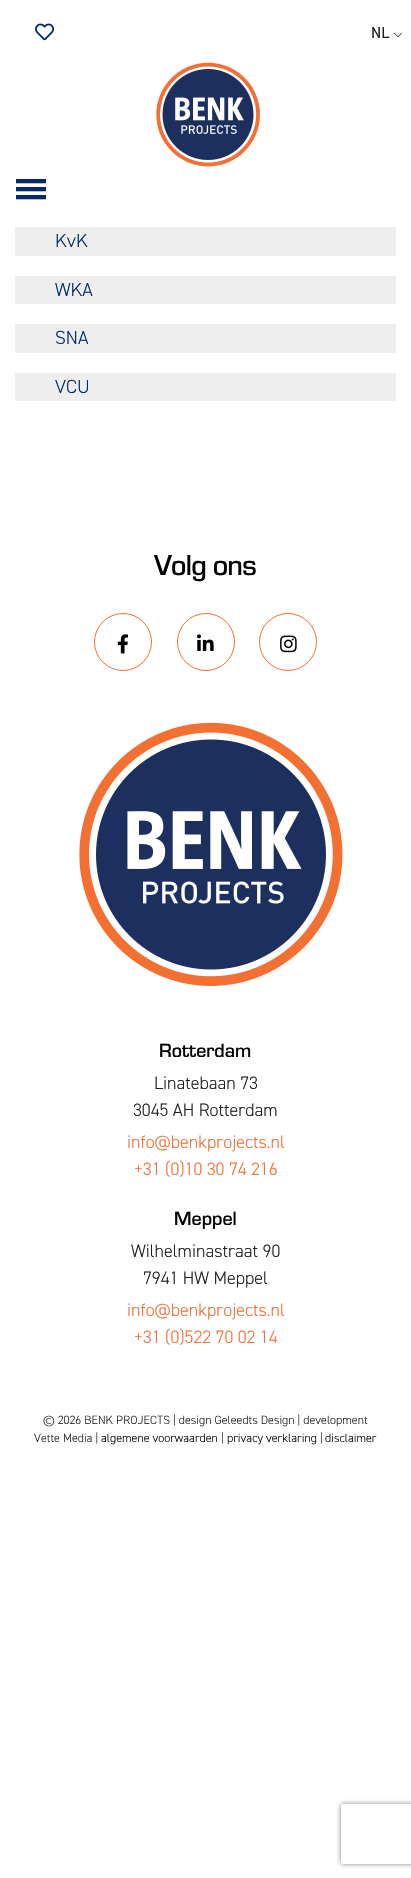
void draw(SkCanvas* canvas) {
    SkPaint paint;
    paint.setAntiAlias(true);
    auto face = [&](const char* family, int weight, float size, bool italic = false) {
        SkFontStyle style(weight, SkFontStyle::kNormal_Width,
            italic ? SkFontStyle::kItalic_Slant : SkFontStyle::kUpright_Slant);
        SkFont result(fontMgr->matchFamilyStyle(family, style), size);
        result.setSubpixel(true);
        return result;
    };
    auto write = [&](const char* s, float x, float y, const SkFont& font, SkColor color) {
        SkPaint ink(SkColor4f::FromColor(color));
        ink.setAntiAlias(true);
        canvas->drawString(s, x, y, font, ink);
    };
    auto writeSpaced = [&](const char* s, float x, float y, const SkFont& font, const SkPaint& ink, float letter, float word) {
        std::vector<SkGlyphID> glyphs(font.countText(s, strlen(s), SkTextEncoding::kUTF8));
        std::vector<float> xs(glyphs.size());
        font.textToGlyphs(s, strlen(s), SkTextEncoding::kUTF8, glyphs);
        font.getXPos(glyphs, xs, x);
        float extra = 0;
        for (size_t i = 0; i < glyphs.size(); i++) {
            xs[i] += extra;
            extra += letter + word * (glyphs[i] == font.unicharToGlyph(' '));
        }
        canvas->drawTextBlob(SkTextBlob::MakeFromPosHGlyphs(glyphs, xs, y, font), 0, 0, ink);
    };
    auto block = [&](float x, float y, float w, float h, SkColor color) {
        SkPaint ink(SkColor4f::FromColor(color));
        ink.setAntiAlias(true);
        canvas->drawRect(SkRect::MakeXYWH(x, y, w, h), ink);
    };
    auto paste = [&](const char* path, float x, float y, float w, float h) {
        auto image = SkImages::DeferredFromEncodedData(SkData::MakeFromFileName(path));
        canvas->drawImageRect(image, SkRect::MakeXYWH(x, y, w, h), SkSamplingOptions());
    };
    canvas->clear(SK_ColorWHITE);
    paste("pic1.png", 35, 23, 19, 18);
    paste("pic2.png", 394, 32, 8, 5);
    auto kFont1 = face("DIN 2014", 400, 16);
    write("NL", 371, 38, kFont1, SkColorSetRGB(35, 31, 32));
    paste("pic3.png", 156, 62, 104, 105);
    block(16, 183, 30, 1, SkColorSetRGB(191, 191, 191));
    block(16, 179, 30, 4, SkColorSetRGB(1, 42, 102));
    block(16, 191, 30, 1, SkColorSetRGB(191, 191, 191));
    block(16, 187, 30, 4, SkColorSetRGB(1, 42, 102));
    block(16, 199, 30, 1, SkColorSetRGB(191, 191, 191));
    block(16, 195, 30, 4, SkColorSetRGB(1, 42, 102));
    block(15, 227, 381, 29, SkColorSetRGB(238, 238, 238));
    auto kFont2 = face("DIN 2014", 300, 19);
    write("KvK", 55, 247, kFont2, SkColorSetRGB(1, 42, 102));
    block(15, 276, 381, 28, SkColorSetRGB(238, 238, 238));
    write("WKA", 55, 296, kFont2, SkColorSetRGB(1, 42, 102));
    block(15, 324, 381, 29, SkColorSetRGB(238, 238, 238));
    write("SNA", 55, 344, kFont2, SkColorSetRGB(1, 42, 102));
    block(15, 373, 381, 28, SkColorSetRGB(238, 238, 238));
    write("VCU", 55, 393, kFont2, SkColorSetRGB(1, 42, 102));
    auto kFont3 = face("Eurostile", 500, 30);
    paint.setColor(SK_ColorBLACK);
    writeSpaced("Volg ons", 154, 575, kFont3, paint, -0.75f, 0);
    paint.setStyle(SkPaint::kStroke_Style);
    paint.setStrokeWidth(1);
    paint.setColor(SkColorSetRGB(243, 111, 50));
    canvas->drawCircle(123, 642, 28.5f, paint);
    paste("pic4.png", 117, 634, 12, 20);
    canvas->drawCircle(206, 642, 28.5f, paint);
    paste("pic5.png", 197, 634, 17, 17);
    canvas->drawCircle(288, 642, 28.5f, paint);
    paste("pic6.png", 280, 635, 17, 18);
    paste("pic7.png", 79, 722, 264, 264);
    auto kFont4 = face("Eurostile", 500, 20);
    write("Rotterdam", 159, 1057, kFont4, SK_ColorBLACK);
    auto kFont5 = face("DIN 2014", 300, 18);
    write("Linatebaan 73", 154, 1089, kFont5, SkColorSetRGB(35, 31, 32));
    write("3045 AH Rotterdam", 133, 1116, kFont5, SkColorSetRGB(35, 31, 32));
    write("info@benkprojects.nl", 127, 1148, kFont5, SkColorSetRGB(243, 111, 50));
    write("+31 (0)10 30 74 216", 134, 1175, kFont5, SkColorSetRGB(243, 111, 50));
    write("Meppel", 174, 1225, kFont4, SK_ColorBLACK);
    write("Wilhelminastraat 90", 131, 1257, kFont5, SkColorSetRGB(35, 31, 32));
    write("7941 HW Meppel", 143, 1284, kFont5, SkColorSetRGB(35, 31, 32));
    write("info@benkprojects.nl", 127, 1316, kFont5, SkColorSetRGB(243, 111, 50));
    write("+31 (0)522 70 02 14", 134, 1343, kFont5, SkColorSetRGB(243, 111, 50));
    auto kFont6 = face("DIN 2014", 300, 12);
    write("© 2026 BENK PROJECTS | design Geleedts Design | development", 43, 1424, kFont6, SkColorSetRGB(35, 31, 32));
    write("Vette Media |", 34, 1442, kFont6, SkColorSetRGB(35, 31, 32));
    write("algemene voorwaarden", 101, 1442, kFont6, SK_ColorBLACK);
    write("|", 221, 1442, kFont6, SkColorSetRGB(35, 31, 32));
    write("privacy verklaring", 227, 1442, kFont6, SK_ColorBLACK);
    write("|", 320, 1442, kFont6, SkColorSetRGB(35, 31, 32));
    write("disclaimer", 325, 1442, kFont6, SK_ColorBLACK);
    canvas->save();
    canvas->clipPath(SkPathBuilder(SkPathFillType::kEvenOdd).moveTo(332, 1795).lineTo(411, 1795).lineTo(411, 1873).lineTo(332, 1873).close().moveTo(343, 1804).lineTo(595, 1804).cubicTo(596, 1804, 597, 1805, 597, 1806).lineTo(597, 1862).cubicTo(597, 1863, 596, 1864, 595, 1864).lineTo(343, 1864).cubicTo(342, 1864, 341, 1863, 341, 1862).lineTo(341, 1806).cubicTo(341, 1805, 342, 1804, 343, 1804).close().detach(), true);
    paint.setStyle(SkPaint::kFill_Style);
    paint.setColor(SkColorSetRGB(128, 128, 128));
    paint.setMaskFilter(SkMaskFilter::MakeBlur(kNormal_SkBlurStyle, 2.5f));
    canvas->drawRoundRect(SkRect::MakeXYWH(341, 1804, 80, 60), 2, 2, paint);
    paint.setMaskFilter(nullptr);
    canvas->restore();
}
